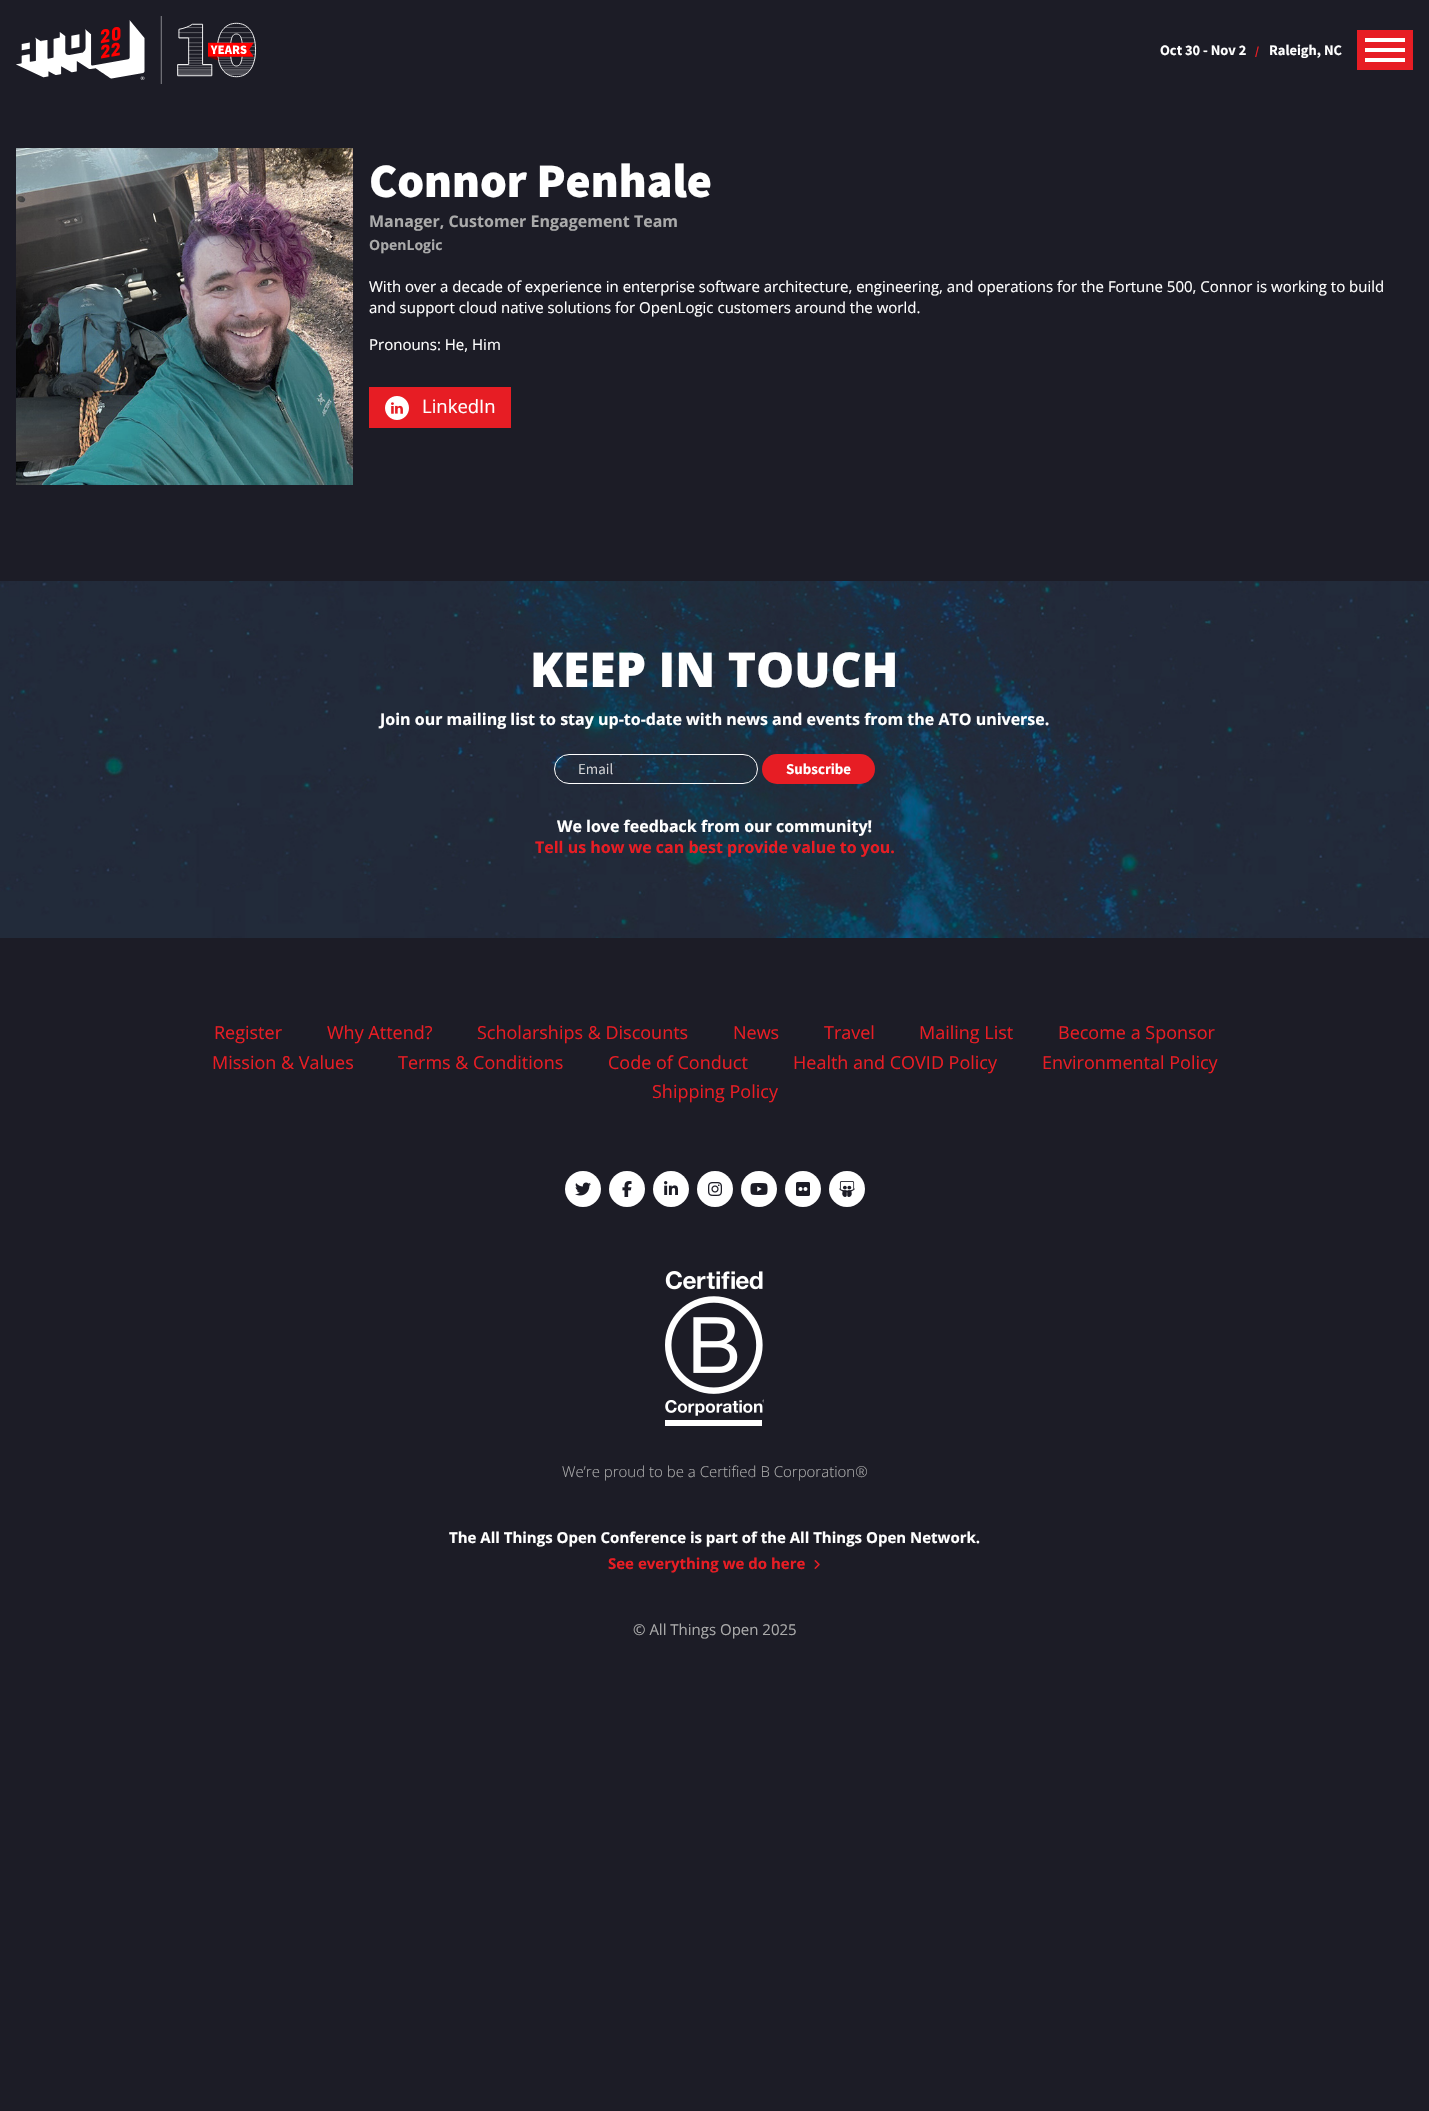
void draw(SkCanvas* canvas) {
    SkPaint paint;
    paint.setAntiAlias(true);
    auto face = [&](const char* family, int weight, float size, bool italic = false) {
        SkFontStyle style(weight, SkFontStyle::kNormal_Width,
            italic ? SkFontStyle::kItalic_Slant : SkFontStyle::kUpright_Slant);
        SkFont result(fontMgr->matchFamilyStyle(family, style), size);
        result.setSubpixel(true);
        return result;
    };
    auto write = [&](const char* s, float x, float y, const SkFont& font, SkColor color) {
        SkPaint ink(SkColor4f::FromColor(color));
        ink.setAntiAlias(true);
        canvas->drawString(s, x, y, font, ink);
    };
    auto block = [&](float x, float y, float w, float h, SkColor color) {
        SkPaint ink(SkColor4f::FromColor(color));
        ink.setAntiAlias(true);
        canvas->drawRect(SkRect::MakeXYWH(x, y, w, h), ink);
    };
    auto card = [&](float x, float y, float w, float h, float radius, SkColor color) {
        SkPaint ink(SkColor4f::FromColor(color));
        ink.setAntiAlias(true);
        canvas->drawRoundRect(SkRect::MakeXYWH(x, y, w, h), radius, radius, ink);
    };
    auto paste = [&](const char* path, float x, float y, float w, float h) {
        auto image = SkImages::DeferredFromEncodedData(SkData::MakeFromFileName(path));
        canvas->drawImageRect(image, SkRect::MakeXYWH(x, y, w, h), SkSamplingOptions());
    };
    canvas->clear(SkColorSetRGB(28, 28, 38));
    paste("pic1.png", 16, 16, 240, 68);
    auto kFont1 = face("Assistant", 700, 14.5f);
    write("Oct 30 - Nov 2", 1160, 55, kFont1, SK_ColorWHITE);
    auto kFont2 = face("Assistant", 700, 12);
    write("/", 1255, 55, kFont2, SkColorSetRGB(231, 29, 36));
    write("Raleigh, NC", 1269, 55, kFont1, SK_ColorWHITE);
    block(1357, 30, 56, 40, SkColorSetRGB(231, 29, 36));
    block(1365, 38, 40, 4, SK_ColorWHITE);
    block(1365, 58, 40, 4, SK_ColorWHITE);
    block(1365, 48, 40, 4, SK_ColorWHITE);
    paste("pic2.png", 16, 148, 337, 337);
    auto kFont3 = face("Assistant", 800, 48);
    write("Connor Penhale", 369, 197, kFont3, SK_ColorWHITE);
    auto kFont4 = face("Open Sans", 700, 16);
    write("Manager, Customer Engagement Team", 369, 227, kFont4, SkColorSetRGB(170, 170, 170));
    auto kFont5 = face("Open Sans", 700, 14);
    write("OpenLogic", 369, 250, kFont5, SkColorSetRGB(170, 170, 170));
    auto kFont6 = face("Open Sans", 400, 15);
    write("With over a decade of experience in enterprise software architecture, engineering, and operations for the Fortune 500, Connor is working to build", 369, 292, kFont6, SK_ColorWHITE);
    write("and support cloud native solutions for OpenLogic customers around the world.", 369, 313, kFont6, SK_ColorWHITE);
    write("Pronouns: He, Him", 369, 350, kFont6, SK_ColorWHITE);
    block(369, 387, 142, 41, SkColorSetRGB(231, 29, 36));
    paste("pic3.png", 385, 396, 24, 24);
    auto kFont7 = face("Open Sans", 400, 18.5f);
    write("LinkedIn", 422, 413, kFont7, SK_ColorWHITE);
    paste("pic4.png", 0, 581, 1429, 357);
    auto kFont8 = face("Open Sans", 800, 48);
    write("KEEP IN TOUCH", 530, 687, kFont8, SK_ColorWHITE);
    write("Join our mailing list to stay up-to-date with news and events from the ATO universe.", 380, 725, kFont4, SK_ColorWHITE);
    paint.setStyle(SkPaint::kStroke_Style);
    paint.setStrokeWidth(1);
    paint.setColor(SK_ColorWHITE);
    canvas->drawRoundRect(SkRect::MakeXYWH(554.5f, 754.5f, 203, 29), 14.5f, 14.5f, paint);
    auto kFont9 = face("Assistant", 400, 15);
    write("Email", 578, 774, kFont9, SkColorSetRGB(216, 216, 218));
    card(762, 754, 113, 30, 15, SkColorSetRGB(231, 29, 36));
    auto kFont10 = face("Assistant", 700, 15);
    write("Subscribe", 786, 774, kFont10, SK_ColorWHITE);
    write("We love feedback from our community!", 557, 832, kFont4, SK_ColorWHITE);
    write("Tell us how we can best provide value to you.", 535, 853, kFont4, SkColorSetRGB(231, 29, 36));
    auto kFont11 = face("Open Sans", 400, 18);
    write("Register", 214, 1039, kFont11, SkColorSetRGB(231, 29, 36));
    write("Why Attend?", 327, 1039, kFont11, SkColorSetRGB(231, 29, 36));
    write("Scholarships & Discounts", 477, 1039, kFont11, SkColorSetRGB(231, 29, 36));
    write("News", 733, 1039, kFont11, SkColorSetRGB(231, 29, 36));
    write("Travel", 824, 1039, kFont11, SkColorSetRGB(231, 29, 36));
    write("Mailing List", 919, 1039, kFont11, SkColorSetRGB(231, 29, 36));
    write("Become a Sponsor", 1058, 1039, kFont11, SkColorSetRGB(231, 29, 36));
    write("Mission & Values", 212, 1069, kFont11, SkColorSetRGB(231, 29, 36));
    write("Terms & Conditions", 398, 1069, kFont11, SkColorSetRGB(231, 29, 36));
    write("Code of Conduct", 608, 1069, kFont11, SkColorSetRGB(231, 29, 36));
    write("Health and COVID Policy", 793, 1069, kFont11, SkColorSetRGB(231, 29, 36));
    write("Environmental Policy", 1042, 1069, kFont11, SkColorSetRGB(231, 29, 36));
    write("Shipping Policy", 652, 1098, kFont11, SkColorSetRGB(231, 29, 36));
    paint.setStyle(SkPaint::kFill_Style);
    canvas->drawCircle(583, 1189, 18, paint);
    paste("pic5.png", 575, 1182, 16, 14);
    canvas->drawCircle(627, 1189, 18, paint);
    paste("pic6.png", 622, 1181, 10, 16);
    canvas->drawCircle(671, 1189, 18, paint);
    paste("pic7.png", 664, 1181, 14, 14);
    canvas->drawCircle(715, 1189, 18, paint);
    paste("pic8.png", 708, 1182, 14, 14);
    canvas->drawCircle(759, 1189, 18, paint);
    paste("pic9.png", 750, 1183, 18, 12);
    canvas->drawCircle(803, 1189, 18, paint);
    paste("pic10.png", 796, 1182, 14, 14);
    canvas->drawCircle(847, 1189, 18, paint);
    paste("pic11.png", 839, 1181, 16, 16);
    paste("pic12.png", 665, 1271, 99, 155);
    auto kFont12 = face("Open Sans", 300, 15);
    write("We’re proud to be a Certified B Corporation®", 562, 1477, kFont12, SkColorSetRGB(170, 170, 170));
    auto kFont13 = face("Open Sans", 700, 15);
    write("The All Things Open Conference is part of the All Things Open Network.", 449, 1543, kFont13, SK_ColorWHITE);
    write("See everything we do here", 608, 1569, kFont13, SkColorSetRGB(231, 29, 36));
    paste("pic13.png", 814, 1560, 6, 9);
    write("© All Things Open 2025", 633, 1635, kFont6, SkColorSetRGB(170, 170, 170));
}
